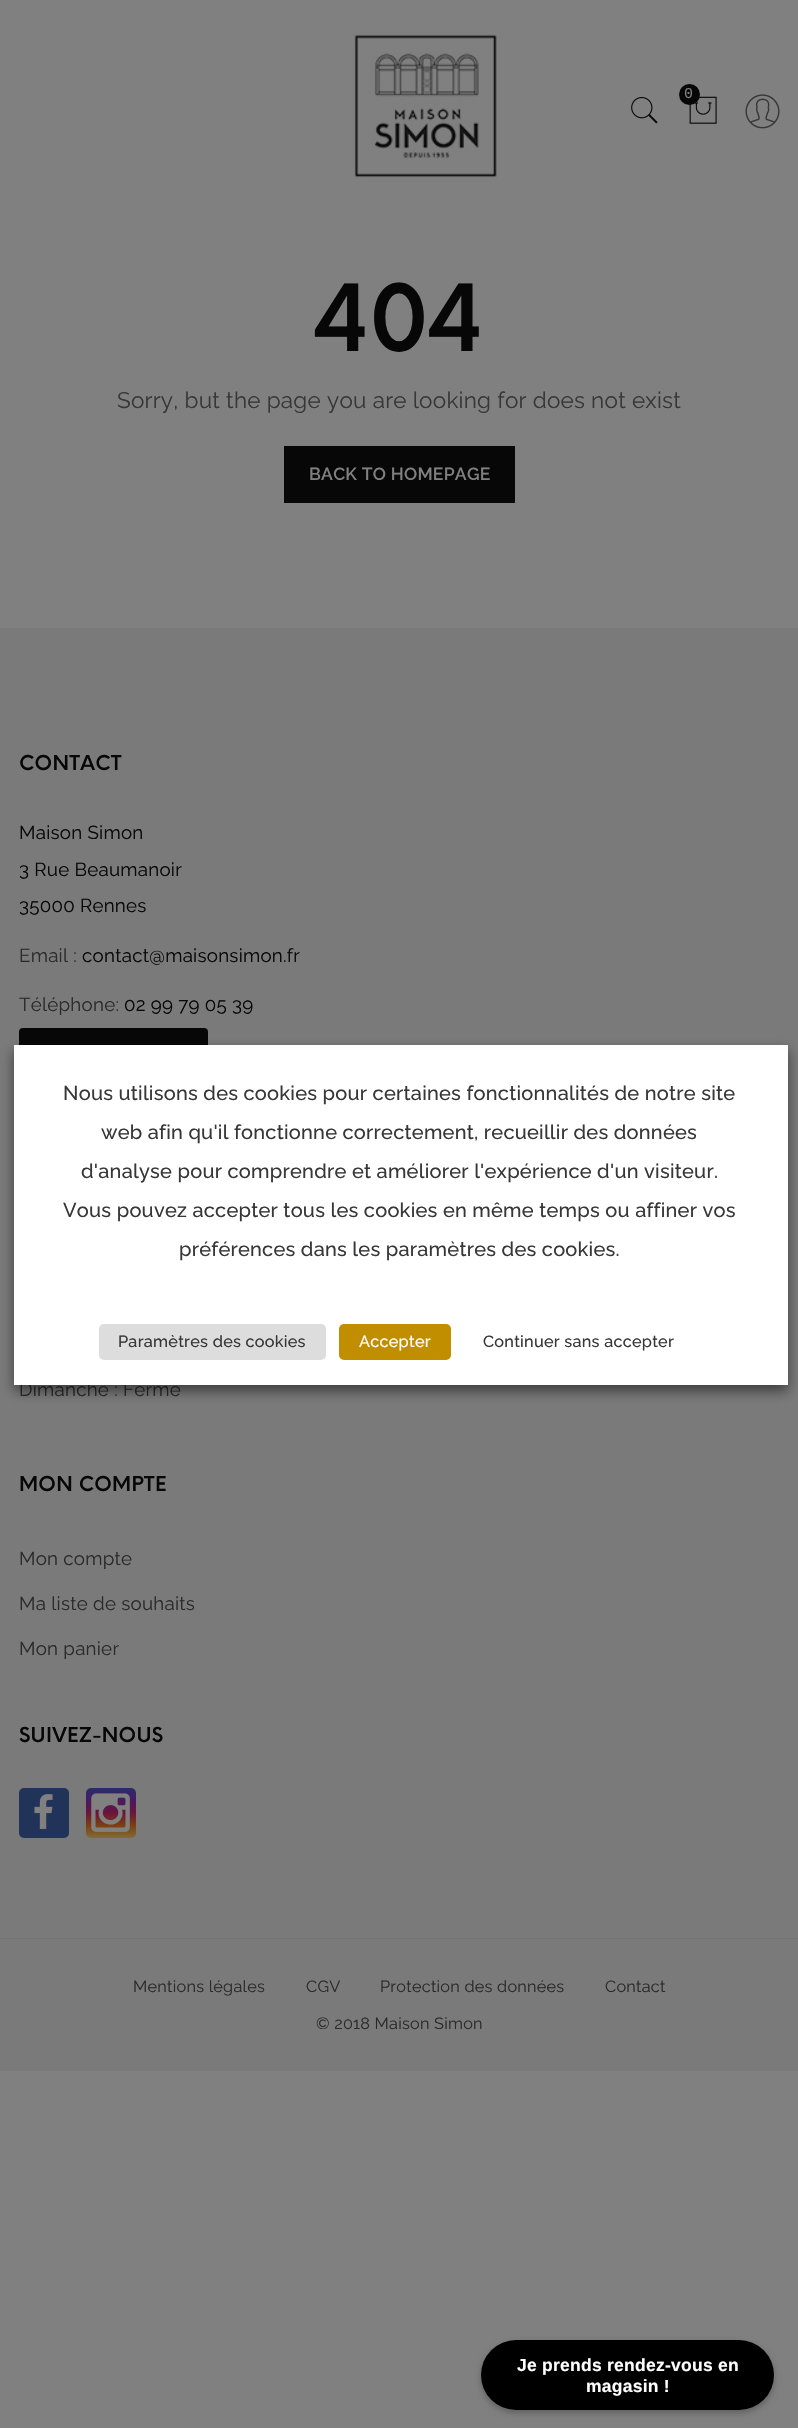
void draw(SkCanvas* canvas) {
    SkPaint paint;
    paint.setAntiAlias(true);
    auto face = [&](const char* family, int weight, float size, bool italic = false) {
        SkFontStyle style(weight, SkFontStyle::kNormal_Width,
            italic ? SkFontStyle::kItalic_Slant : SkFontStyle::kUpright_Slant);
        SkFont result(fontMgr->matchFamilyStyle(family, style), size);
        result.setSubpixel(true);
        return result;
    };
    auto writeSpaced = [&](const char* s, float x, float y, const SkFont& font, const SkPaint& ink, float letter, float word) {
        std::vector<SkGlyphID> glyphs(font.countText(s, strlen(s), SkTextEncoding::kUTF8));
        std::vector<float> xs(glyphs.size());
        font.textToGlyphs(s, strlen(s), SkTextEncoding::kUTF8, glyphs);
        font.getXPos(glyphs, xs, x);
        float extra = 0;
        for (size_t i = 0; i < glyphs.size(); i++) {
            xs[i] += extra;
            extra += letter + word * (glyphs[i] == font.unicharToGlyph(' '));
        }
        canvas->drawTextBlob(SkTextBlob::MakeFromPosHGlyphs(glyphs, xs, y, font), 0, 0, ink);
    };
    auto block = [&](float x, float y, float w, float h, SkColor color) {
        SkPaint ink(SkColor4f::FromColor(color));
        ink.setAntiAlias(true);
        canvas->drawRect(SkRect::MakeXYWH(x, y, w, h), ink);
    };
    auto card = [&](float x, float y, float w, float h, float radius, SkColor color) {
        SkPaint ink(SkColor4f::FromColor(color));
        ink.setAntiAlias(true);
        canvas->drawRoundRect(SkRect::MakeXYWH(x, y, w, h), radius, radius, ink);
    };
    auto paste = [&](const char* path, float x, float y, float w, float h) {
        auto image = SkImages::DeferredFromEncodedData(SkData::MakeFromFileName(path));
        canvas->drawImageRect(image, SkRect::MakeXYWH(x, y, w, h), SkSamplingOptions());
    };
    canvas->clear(SkColorSetRGB(128, 128, 128));
    paste("pic1.png", 354, 34, 143, 144);
    paste("pic2.png", 631, 97, 27, 27);
    paste("pic3.png", 689, 96, 28, 28);
    paint.setColor(SkColorSetRGB(7, 7, 7));
    canvas->drawCircle(689.5f, 94.5f, 10.5f, paint);
    auto kFont1 = face("Liberation Mono", 400, 15);
    paint.setColor(SkColorSetRGB(128, 128, 128));
    writeSpaced("0", 684, 98, kFont1, paint, 0.25f, 0);
    paste("pic4.png", 745, 94, 35, 35);
    auto kFont2 = face("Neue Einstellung", 600, 90);
    paint.setColor(SkColorSetRGB(7, 7, 7));
    writeSpaced("404", 314, 351, kFont2, paint, 0.25f, 0);
    auto kFont3 = face("Raleway", 400, 22.5f);
    paint.setColor(SkColorSetRGB(55, 55, 55));
    writeSpaced("Sorry, but the page you are looking for does not exist", 117, 408, kFont3, paint, 0.25f, 0);
    block(284, 446, 231, 57, SkColorSetRGB(7, 7, 7));
    auto kFont4 = face("Raleway", 600, 17.5f);
    paint.setColor(SkColorSetRGB(128, 128, 128));
    writeSpaced("BACK TO HOMEPAGE", 309, 480, kFont4, paint, 0.25f, 0);
    block(0, 628, 798, 1443, SkColorSetRGB(122, 122, 123));
    auto kFont5 = face("Neue Einstellung", 600, 20);
    paint.setColor(SkColorSetRGB(7, 7, 7));
    writeSpaced("CONTACT", 19, 770, kFont5, paint, 0.25f, 0);
    auto kFont6 = face("Raleway", 400, 18.75f);
    writeSpaced("Maison Simon", 19, 839, kFont6, paint, 0.25f, 0);
    writeSpaced("3 Rue Beaumanoir", 19, 876, kFont6, paint, 0.25f, 0);
    writeSpaced("35000 Rennes", 19, 912, kFont6, paint, 0.25f, 0);
    paint.setColor(SkColorSetRGB(42, 42, 42));
    writeSpaced("Email :", 19, 962, kFont6, paint, 0.25f, 0);
    paint.setColor(SkColorSetRGB(7, 7, 7));
    writeSpaced("contact@maisonsimon.fr", 82, 962, kFont6, paint, 0.25f, 0);
    paint.setColor(SkColorSetRGB(42, 42, 42));
    writeSpaced("Téléphone:", 19, 1011, kFont6, paint, 0.25f, 0);
    paint.setColor(SkColorSetRGB(7, 7, 7));
    writeSpaced("02 99 79 05 39", 124, 1011, kFont6, paint, 0.25f, 0);
    card(19, 1028, 189, 52, 4, SkColorSetRGB(7, 7, 7));
    paint.setColor(SkColorSetRGB(42, 42, 42));
    writeSpaced("Dimanche : Fermé", 19, 1396, kFont6, paint, 0.25f, 0);
    paint.setColor(SkColorSetRGB(7, 7, 7));
    writeSpaced("MON COMPTE", 19, 1491, kFont5, paint, 0.25f, 0);
    paint.setColor(SkColorSetRGB(42, 42, 42));
    writeSpaced("Mon compte", 19, 1565, kFont6, paint, 0.25f, 0);
    writeSpaced("Ma liste de souhaits", 19, 1610, kFont6, paint, 0.25f, 0);
    writeSpaced("Mon panier", 19, 1655, kFont6, paint, 0.25f, 0);
    paint.setColor(SkColorSetRGB(7, 7, 7));
    writeSpaced("SUIVEZ-NOUS", 19, 1742, kFont5, paint, 0.25f, 0);
    card(19, 1788, 50, 50, 5, SkColorSetRGB(33, 51, 89));
    paste("pic5.png", 34, 1794, 19, 35);
    {
        const SkColor colors[] = {SkColorSetRGB(39, 46, 107), SkColorSetRGB(75, 24, 96), SkColorSetRGB(107, 21, 59), SkColorSetRGB(125, 63, 15), SkColorSetRGB(127, 109, 59)};
        const float stops[] = {0, 0.26f, 0.5f, 0.75f, 1};
        const SkPoint ends[] = {{111, 1788}, {111, 1838}};
        paint.setShader(SkGradientShader::MakeLinear(ends, colors, stops, 5, SkTileMode::kClamp));
        paint.setAlpha(255);
    }
    canvas->drawRoundRect(SkRect::MakeXYWH(86, 1788, 50, 50), 5, 5, paint);
    paste("pic6.png", 91, 1793, 39, 39);
    block(0, 1938, 798, 1, SkColorSetRGB(115, 115, 115));
    auto kFont7 = face("Raleway", 400, 16.25f);
    paint.setShader(nullptr);
    paint.setColor(SkColorSetRGB(42, 42, 42));
    writeSpaced("Mentions légales", 133, 1992, kFont7, paint, 0.25f, 0);
    writeSpaced("CGV", 306, 1992, kFont7, paint, 0.25f, 0);
    writeSpaced("Protection des données", 380, 1992, kFont7, paint, 0.25f, 0);
    writeSpaced("Contact", 605, 1992, kFont7, paint, 0.25f, 0);
    writeSpaced("© 2018 Maison Simon", 316, 2029, kFont7, paint, 0.25f, 0);
    paint.setColor(SkColorSetARGB(128, 0, 0, 0));
    paint.setMaskFilter(SkMaskFilter::MakeBlur(kNormal_SkBlurStyle, 6));
    canvas->drawRect(SkRect::MakeXYWH(14, 1051, 774, 340), paint);
    paint.setMaskFilter(nullptr);
    block(14, 1045, 774, 340, SK_ColorWHITE);
    auto kFont8 = face("Raleway", 500, 20);
    paint.setColor(SkColorSetRGB(55, 55, 55));
    writeSpaced("Nous utilisons des cookies pour certaines fonctionnalités de notre site", 63, 1100, kFont8, paint, 0.25f, 0);
    writeSpaced("web afin qu'il fonctionne correctement, recueillir des données", 101, 1139, kFont8, paint, 0.25f, 0);
    writeSpaced("d'analyse pour comprendre et améliorer l'expérience d'un visiteur.", 81, 1178, kFont8, paint, 0.25f, 0);
    writeSpaced("Vous pouvez accepter tous les cookies en même temps ou affiner vos", 63, 1217, kFont8, paint, 0.25f, 0);
    writeSpaced("préférences dans les paramètres des cookies.", 179, 1256, kFont8, paint, 0.25f, 0);
    card(99, 1324, 227, 36, 5, SkColorSetRGB(221, 221, 221));
    auto kFont9 = face("Raleway", 500, 16.25f);
    writeSpaced("Paramètres des cookies", 118, 1347, kFont9, paint, 0.25f, 0);
    card(339, 1324, 112, 36, 5, SkColorSetRGB(193, 142, 0));
    paint.setColor(SK_ColorWHITE);
    writeSpaced("Accepter", 359, 1347, kFont9, paint, 0.25f, 0);
    paint.setColor(SkColorSetRGB(55, 55, 55));
    writeSpaced("Continuer sans accepter", 483, 1347, kFont9, paint, 0.25f, 0);
    paint.setColor(SkColorSetARGB(64, 0, 0, 0));
    paint.setMaskFilter(SkMaskFilter::MakeBlur(kNormal_SkBlurStyle, 3));
    canvas->drawRoundRect(SkRect::MakeXYWH(481, 2343, 293, 70), 35, 35, paint);
    paint.setMaskFilter(nullptr);
    card(481, 2340, 293, 70, 35, SK_ColorBLACK);
    auto kFont10 = face("Liberation Sans", 700, 17.5f);
    paint.setColor(SK_ColorWHITE);
    writeSpaced("Je prends rendez-vous en", 517, 2371, kFont10, paint, 0.25f, 0);
    writeSpaced("magasin !", 586, 2392, kFont10, paint, 0.25f, 0);
}
